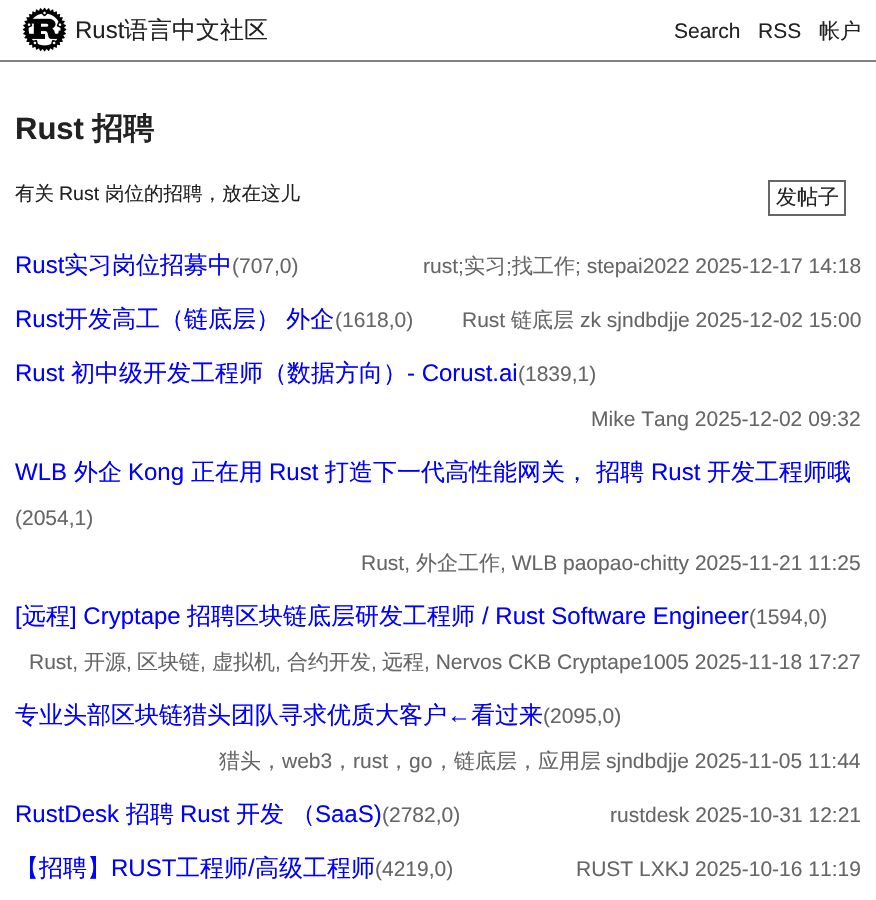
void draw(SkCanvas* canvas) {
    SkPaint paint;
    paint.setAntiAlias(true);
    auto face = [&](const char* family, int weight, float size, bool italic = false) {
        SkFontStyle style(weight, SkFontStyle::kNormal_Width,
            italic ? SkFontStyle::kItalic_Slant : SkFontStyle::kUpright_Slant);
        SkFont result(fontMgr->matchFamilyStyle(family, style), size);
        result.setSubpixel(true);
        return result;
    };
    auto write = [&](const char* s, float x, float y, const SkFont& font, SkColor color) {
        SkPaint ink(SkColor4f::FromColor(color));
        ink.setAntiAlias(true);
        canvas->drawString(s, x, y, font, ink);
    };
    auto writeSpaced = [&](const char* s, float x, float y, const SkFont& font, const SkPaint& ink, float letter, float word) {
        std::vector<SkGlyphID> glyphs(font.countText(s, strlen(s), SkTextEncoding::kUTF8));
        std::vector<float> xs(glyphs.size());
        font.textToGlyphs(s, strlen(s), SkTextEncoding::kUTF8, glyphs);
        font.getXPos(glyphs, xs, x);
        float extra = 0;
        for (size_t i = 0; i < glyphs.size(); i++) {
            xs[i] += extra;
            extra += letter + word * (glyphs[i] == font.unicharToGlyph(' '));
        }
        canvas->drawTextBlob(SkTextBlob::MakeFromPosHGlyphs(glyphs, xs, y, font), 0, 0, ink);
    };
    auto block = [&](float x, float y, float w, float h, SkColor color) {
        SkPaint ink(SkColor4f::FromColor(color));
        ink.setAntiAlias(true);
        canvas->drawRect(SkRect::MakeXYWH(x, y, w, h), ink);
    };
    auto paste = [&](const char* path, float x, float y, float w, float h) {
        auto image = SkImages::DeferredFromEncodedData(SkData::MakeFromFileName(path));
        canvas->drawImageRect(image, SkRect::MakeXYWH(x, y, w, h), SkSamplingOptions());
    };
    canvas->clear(SK_ColorWHITE);
    block(0, 60, 876, 2, SkColorSetRGB(128, 128, 128));
    paste("pic1.png", 22, 7, 45, 45);
    auto kFont1 = face("Liberation Sans", 400, 24);
    write("Rust", 75, 38, kFont1, SkColorSetRGB(34, 34, 34));
    auto kFont2 = face("WenQuanYi Zen Hei", 500, 24);
    write("语言中文社区", 124, 38, kFont2, SkColorSetRGB(34, 34, 34));
    auto kFont3 = face("Liberation Sans", 400, 21);
    write("Search", 674, 38, kFont3, SkColorSetRGB(34, 34, 34));
    write("RSS", 758, 38, kFont3, SkColorSetRGB(34, 34, 34));
    auto kFont4 = face("WenQuanYi Zen Hei", 500, 21);
    write("帐户", 819, 38, kFont4, SkColorSetRGB(34, 34, 34));
    auto kFont5 = face("Liberation Sans", 700, 31);
    write("Rust", 15, 139, kFont5, SkColorSetRGB(34, 34, 34));
    auto kFont6 = face("WenQuanYi Zen Hei", 700, 31);
    write("招聘", 92, 139, kFont6, SkColorSetRGB(34, 34, 34));
    paint.setStyle(SkPaint::kStroke_Style);
    paint.setStrokeWidth(2);
    paint.setColor(SkColorSetRGB(102, 102, 102));
    canvas->drawRect(SkRect::MakeXYWH(769, 181, 76, 34), paint);
    write("发帖子", 776, 204, kFont4, SkColorSetRGB(34, 34, 34));
    auto kFont7 = face("WenQuanYi Zen Hei", 500, 19.5f);
    write("有关", 15, 200, kFont7, SkColorSetRGB(34, 34, 34));
    auto kFont8 = face("Liberation Sans", 400, 19.5f);
    write("Rust", 59, 200, kFont8, SkColorSetRGB(34, 34, 34));
    write("岗位的招聘，放在这儿", 105, 200, kFont7, SkColorSetRGB(34, 34, 34));
    write("Rust", 15, 273, kFont1, SkColorSetRGB(0, 0, 255));
    write("实习岗位招募中", 64, 273, kFont2, SkColorSetRGB(0, 0, 255));
    write("(707,0)", 232, 273, kFont3, SkColorSetRGB(102, 102, 102));
    write("rust;", 423, 273, kFont3, SkColorSetRGB(102, 102, 102));
    write("实习", 464, 273, kFont4, SkColorSetRGB(102, 102, 102));
    write(";", 506, 273, kFont3, SkColorSetRGB(102, 102, 102));
    write("找工作", 512, 273, kFont4, SkColorSetRGB(102, 102, 102));
    write("; stepai2022 2025-12-17 14:18", 575, 273, kFont3, SkColorSetRGB(102, 102, 102));
    write("Rust", 15, 327, kFont1, SkColorSetRGB(0, 0, 255));
    paint.setStyle(SkPaint::kFill_Style);
    paint.setColor(SkColorSetRGB(0, 0, 255));
    writeSpaced("开发高工（链底层） 外企", 64, 327, kFont2, paint, 0, -1);
    write("(1618,0)", 335, 327, kFont3, SkColorSetRGB(102, 102, 102));
    write("Rust", 462, 327, kFont3, SkColorSetRGB(102, 102, 102));
    write("链底层", 511, 327, kFont4, SkColorSetRGB(102, 102, 102));
    write("zk sjndbdjje 2025-12-02 15:00", 580, 327, kFont3, SkColorSetRGB(102, 102, 102));
    write("Rust", 15, 381, kFont1, SkColorSetRGB(0, 0, 255));
    write("初中级开发工程师（数据方向）", 71, 381, kFont2, SkColorSetRGB(0, 0, 255));
    write("- Corust.ai", 407, 381, kFont1, SkColorSetRGB(0, 0, 255));
    write("(1839,1)", 518, 381, kFont3, SkColorSetRGB(102, 102, 102));
    write("Mike Tang 2025-12-02 09:32", 591, 426, kFont3, SkColorSetRGB(102, 102, 102));
    write("WLB", 15, 480, kFont1, SkColorSetRGB(0, 0, 255));
    write("外企", 74, 480, kFont2, SkColorSetRGB(0, 0, 255));
    write("Kong", 128, 480, kFont1, SkColorSetRGB(0, 0, 255));
    write("正在用", 191, 480, kFont2, SkColorSetRGB(0, 0, 255));
    write("Rust", 269, 480, kFont1, SkColorSetRGB(0, 0, 255));
    write("打造下一代高性能网关， 招聘", 325, 480, kFont2, SkColorSetRGB(0, 0, 255));
    write("Rust", 651, 480, kFont1, SkColorSetRGB(0, 0, 255));
    write("开发工程师哦", 707, 480, kFont2, SkColorSetRGB(0, 0, 255));
    write("(2054,1)", 15, 525, kFont3, SkColorSetRGB(102, 102, 102));
    write("Rust,", 361, 570, kFont3, SkColorSetRGB(102, 102, 102));
    write("外企工作", 416, 570, kFont4, SkColorSetRGB(102, 102, 102));
    write(", WLB paopao-chitty 2025-11-21 11:25", 500, 570, kFont3, SkColorSetRGB(102, 102, 102));
    write("[", 15, 624, kFont1, SkColorSetRGB(0, 0, 255));
    write("远程", 22, 624, kFont2, SkColorSetRGB(0, 0, 255));
    write("] Cryptape", 70, 624, kFont1, SkColorSetRGB(0, 0, 255));
    write("招聘区块链底层研发工程师", 187, 624, kFont2, SkColorSetRGB(0, 0, 255));
    write("/ Rust Software Engineer", 482, 624, kFont1, SkColorSetRGB(0, 0, 255));
    write("(1594,0)", 749, 624, kFont3, SkColorSetRGB(102, 102, 102));
    write("Rust,", 29, 669, kFont3, SkColorSetRGB(102, 102, 102));
    write("开源", 84, 669, kFont4, SkColorSetRGB(102, 102, 102));
    write(",", 126, 669, kFont3, SkColorSetRGB(102, 102, 102));
    write("区块链", 137, 669, kFont4, SkColorSetRGB(102, 102, 102));
    write(",", 200, 669, kFont3, SkColorSetRGB(102, 102, 102));
    write("虚拟机", 212, 669, kFont4, SkColorSetRGB(102, 102, 102));
    write(",", 275, 669, kFont3, SkColorSetRGB(102, 102, 102));
    write("合约开发", 287, 669, kFont4, SkColorSetRGB(102, 102, 102));
    write(",", 371, 669, kFont3, SkColorSetRGB(102, 102, 102));
    write("远程", 382, 669, kFont4, SkColorSetRGB(102, 102, 102));
    write(", Nervos CKB Cryptape1005 2025-11-18 17:27", 424, 669, kFont3, SkColorSetRGB(102, 102, 102));
    write("专业头部区块链猎头团队寻求优质大客户", 15, 723, kFont2, SkColorSetRGB(0, 0, 255));
    write("←", 447, 723, kFont1, SkColorSetRGB(0, 0, 255));
    write("看过来", 471, 723, kFont2, SkColorSetRGB(0, 0, 255));
    write("(2095,0)", 543, 723, kFont3, SkColorSetRGB(102, 102, 102));
    write("猎头，", 219, 768, kFont4, SkColorSetRGB(102, 102, 102));
    write("web3", 282, 768, kFont3, SkColorSetRGB(102, 102, 102));
    write("，", 332, 768, kFont4, SkColorSetRGB(102, 102, 102));
    write("rust", 353, 768, kFont3, SkColorSetRGB(102, 102, 102));
    write("，", 388, 768, kFont4, SkColorSetRGB(102, 102, 102));
    write("go", 409, 768, kFont3, SkColorSetRGB(102, 102, 102));
    write("，链底层，应用层", 433, 768, kFont4, SkColorSetRGB(102, 102, 102));
    write("sjndbdjje 2025-11-05 11:44", 606, 768, kFont3, SkColorSetRGB(102, 102, 102));
    write("RustDesk", 15, 822, kFont1, SkColorSetRGB(0, 0, 255));
    write("招聘", 126, 822, kFont2, SkColorSetRGB(0, 0, 255));
    write("Rust", 180, 822, kFont1, SkColorSetRGB(0, 0, 255));
    write("开发 （", 236, 822, kFont2, SkColorSetRGB(0, 0, 255));
    write("SaaS)", 315, 822, kFont1, SkColorSetRGB(0, 0, 255));
    write("(2782,0)", 382, 822, kFont3, SkColorSetRGB(102, 102, 102));
    write("rustdesk 2025-10-31 12:21", 610, 822, kFont3, SkColorSetRGB(102, 102, 102));
    write("【招聘】", 15, 876, kFont2, SkColorSetRGB(0, 0, 255));
    write("RUST", 111, 876, kFont1, SkColorSetRGB(0, 0, 255));
    write("工程师", 176, 876, kFont2, SkColorSetRGB(0, 0, 255));
    write("/", 248, 876, kFont1, SkColorSetRGB(0, 0, 255));
    write("高级工程师", 255, 876, kFont2, SkColorSetRGB(0, 0, 255));
    write("(4219,0)", 375, 876, kFont3, SkColorSetRGB(102, 102, 102));
    write("RUST LXKJ 2025-10-16 11:19", 576, 876, kFont3, SkColorSetRGB(102, 102, 102));
}
